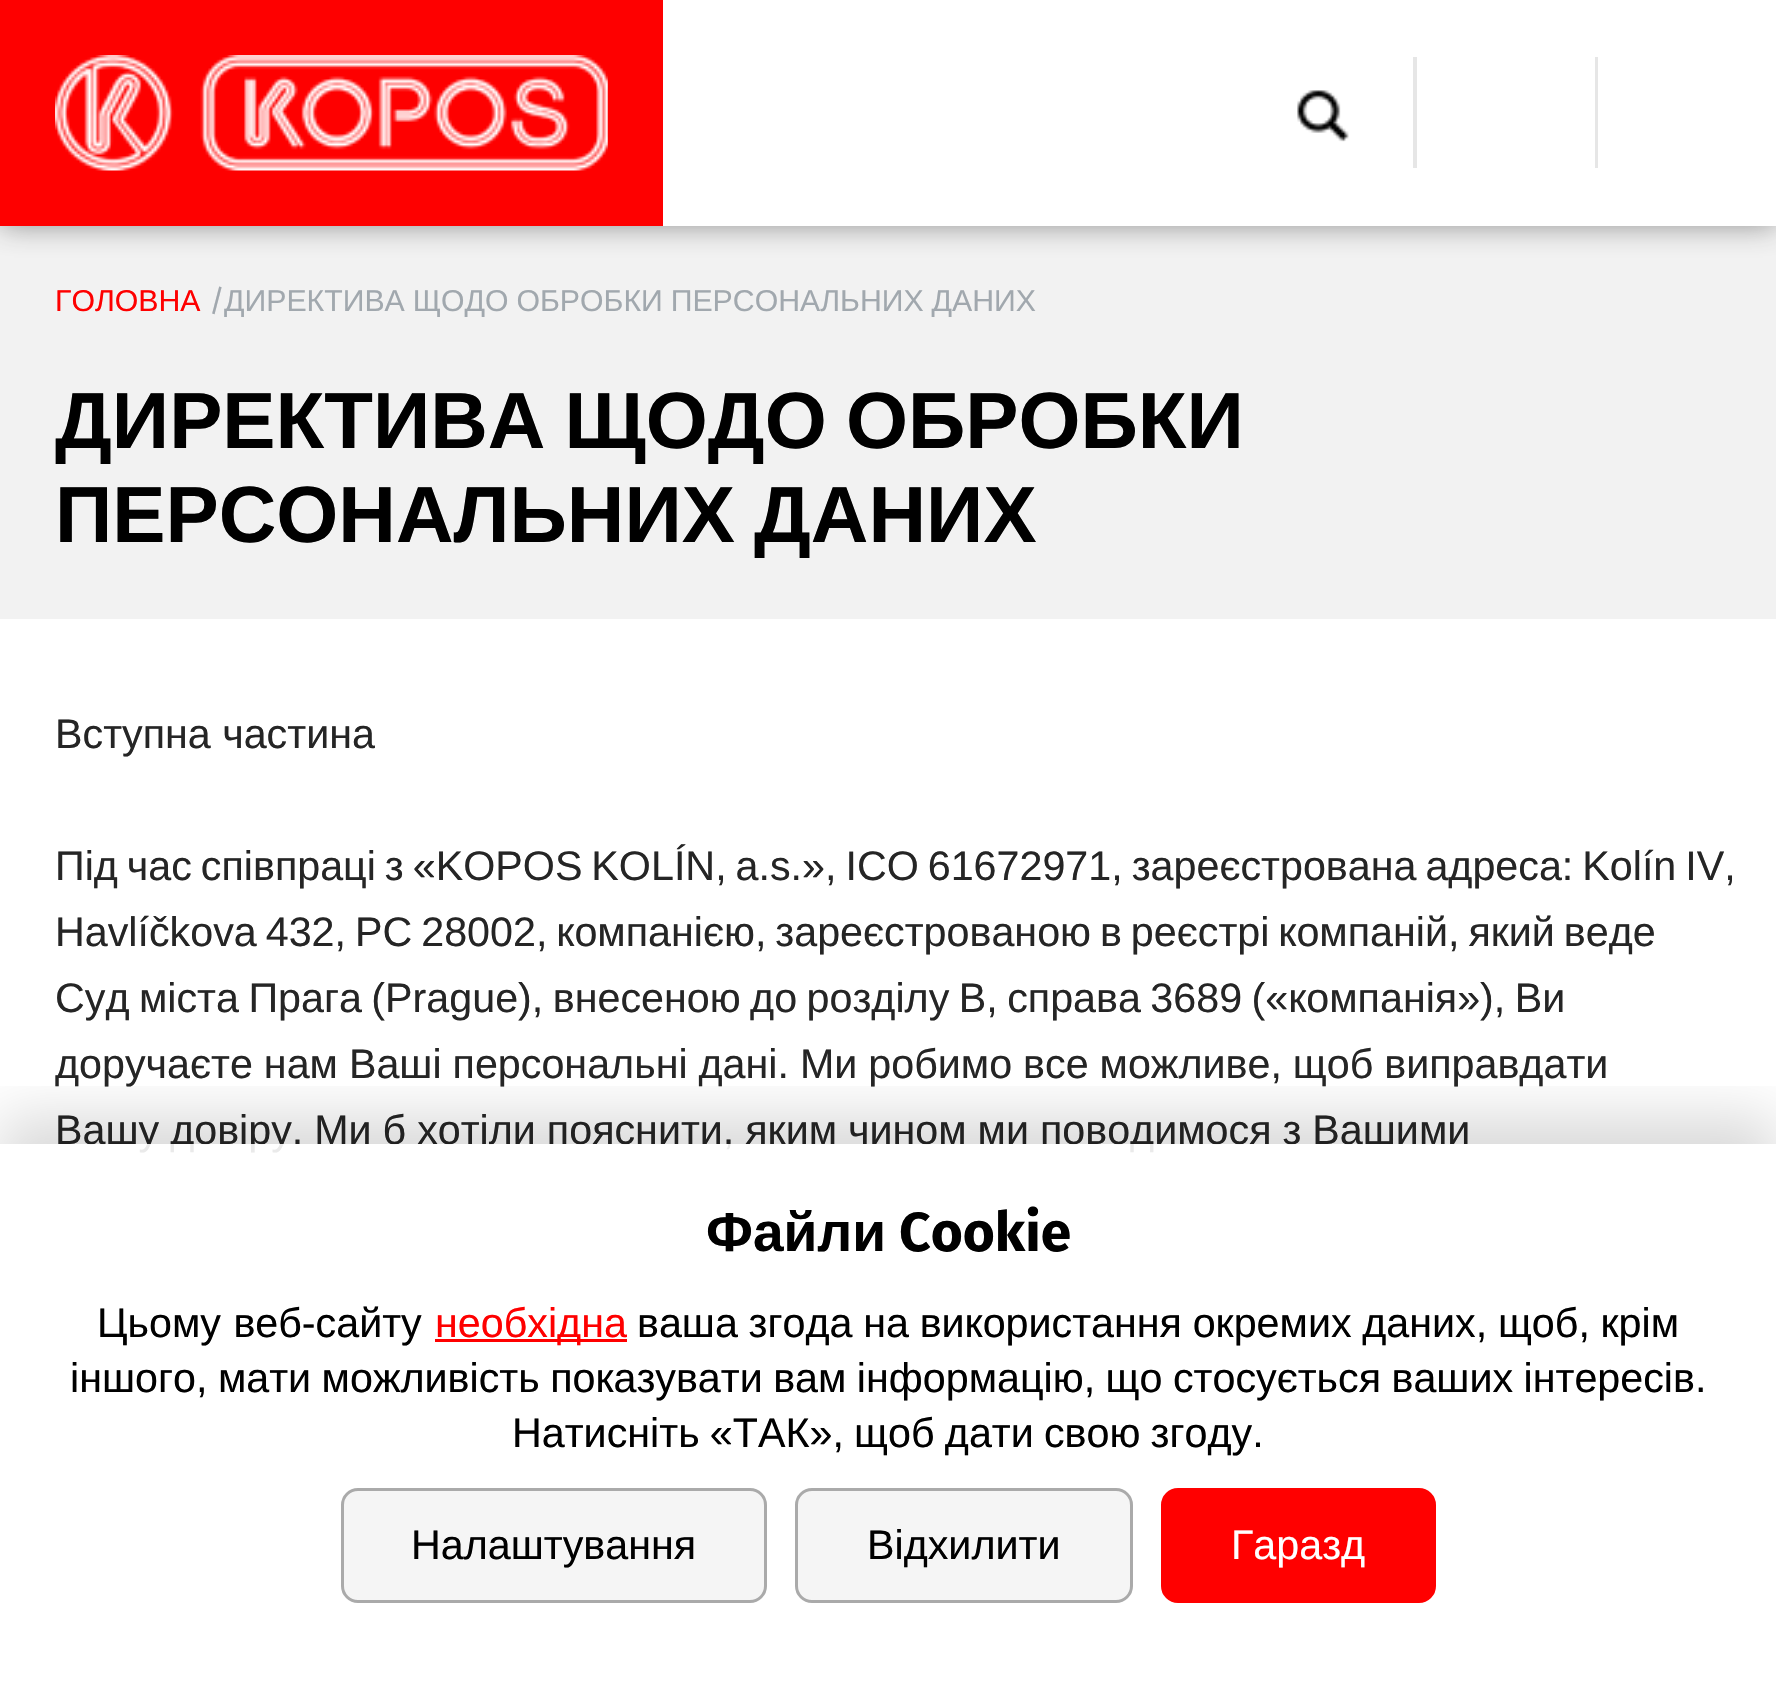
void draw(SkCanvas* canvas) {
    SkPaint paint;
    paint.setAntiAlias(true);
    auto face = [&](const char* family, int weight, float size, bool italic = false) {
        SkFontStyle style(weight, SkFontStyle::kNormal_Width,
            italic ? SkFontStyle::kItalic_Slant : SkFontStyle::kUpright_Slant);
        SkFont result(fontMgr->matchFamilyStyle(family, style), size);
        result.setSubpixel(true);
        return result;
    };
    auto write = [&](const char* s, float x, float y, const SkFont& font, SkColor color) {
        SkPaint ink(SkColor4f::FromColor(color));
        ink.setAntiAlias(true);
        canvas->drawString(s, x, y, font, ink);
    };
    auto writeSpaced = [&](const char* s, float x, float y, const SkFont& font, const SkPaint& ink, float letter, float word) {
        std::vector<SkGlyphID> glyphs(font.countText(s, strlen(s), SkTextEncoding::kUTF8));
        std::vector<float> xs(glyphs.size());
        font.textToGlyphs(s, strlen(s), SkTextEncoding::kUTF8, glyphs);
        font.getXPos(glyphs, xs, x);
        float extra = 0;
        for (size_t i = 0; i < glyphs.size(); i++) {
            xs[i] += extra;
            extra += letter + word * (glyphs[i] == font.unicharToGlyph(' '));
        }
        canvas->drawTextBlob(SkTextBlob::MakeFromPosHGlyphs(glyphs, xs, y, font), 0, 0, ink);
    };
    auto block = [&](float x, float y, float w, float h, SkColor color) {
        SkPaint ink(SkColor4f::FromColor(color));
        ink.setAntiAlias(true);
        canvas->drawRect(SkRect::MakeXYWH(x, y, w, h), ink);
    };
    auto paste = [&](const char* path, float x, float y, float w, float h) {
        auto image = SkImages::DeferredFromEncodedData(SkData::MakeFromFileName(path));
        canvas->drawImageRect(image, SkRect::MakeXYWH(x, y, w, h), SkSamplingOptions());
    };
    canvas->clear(SK_ColorWHITE);
    block(0, 226, 1776, 393, SkColorSetRGB(242, 242, 242));
    paint.setColor(SkColorSetARGB(128, 50, 50, 50));
    paint.setMaskFilter(SkMaskFilter::MakeBlur(kNormal_SkBlurStyle, 14));
    canvas->drawRect(SkRect::MakeXYWH(0, 0, 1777, 226), paint);
    paint.setMaskFilter(nullptr);
    block(663, 0, 1113, 226, SK_ColorWHITE);
    block(0, 0, 663, 226, SkColorSetRGB(254, 0, 0));
    paste("pic1.png", 55, 55, 553, 116);
    paste("pic2.png", 1297, 90, 52, 52);
    block(1413, 57, 4, 111, SkColorSetRGB(230, 230, 230));
    block(1595, 57, 3, 111, SkColorSetRGB(230, 230, 230));
    auto kFont1 = face("Liberation Sans", 400, 30.25f);
    write("ГОЛОВНА", 55, 311, kFont1, SkColorSetRGB(254, 0, 0));
    auto kFont2 = face("Fira Sans", 400, 30.25f);
    write("/", 209, 311, kFont2, SkColorSetRGB(161, 168, 174));
    paint.setColor(SkColorSetRGB(161, 168, 174));
    writeSpaced("ДИРЕКТИВА ЩОДО ОБРОБКИ ПЕРСОНАЛЬНИХ ДАНИХ", 224, 311, kFont1, paint, 0, -0.5f);
    auto kFont3 = face("Liberation Sans", 700, 79.75f);
    paint.setColor(SK_ColorBLACK);
    writeSpaced("ДИРЕКТИВА ЩОДО ОБРОБКИ", 55, 448, kFont3, paint, 0, -3);
    writeSpaced("ПЕРСОНАЛЬНИХ ДАНИХ", 55, 542, kFont3, paint, 0, -3);
    auto kFont4 = face("Liberation Sans", 400, 41.25f);
    write("Вступна частина", 55, 748, kFont4, SkColorSetRGB(37, 37, 37));
    paint.setColor(SkColorSetRGB(37, 37, 37));
    writeSpaced("Під час співпраці з «KOPOS KOLÍN, a.s.», ІСО 61672971, зареєстрована адреса: Kolín IV,", 55, 880, kFont4, paint, 0, -2.5f);
    writeSpaced("Havlíčkova 432, PC 28002, компанією, зареєстрованою в реєстрі компаній, який веде", 55, 946, kFont4, paint, 0, -2.5f);
    writeSpaced("Суд міста Прага (Prague), внесеною до розділу В, справа 3689 («компанія»), Ви", 55, 1012, kFont4, paint, 0, -2);
    writeSpaced("доручаєте нам Ваші персональні дані. Ми робимо все можливе, щоб виправдати", 55, 1078, kFont4, paint, 0, -0.5f);
    writeSpaced("Вашу довіру. Ми б хотіли пояснити, яким чином ми поводимося з Вашими", 55, 1144, kFont4, paint, 0, -0.5f);
    canvas->save();
    canvas->clipRect(SkRect::MakeXYWH(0, 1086, 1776, 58));
    paint.setColor(SkColorSetARGB(38, 0, 0, 0));
    paint.setMaskFilter(SkMaskFilter::MakeBlur(kNormal_SkBlurStyle, 27.5f));
    canvas->drawRect(SkRect::MakeXYWH(0, 1117, 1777, 541), paint);
    paint.setMaskFilter(nullptr);
    canvas->restore();
    block(88, 1144, 1274, 9, SkColorSetARGB(230, 255, 255, 255));
    auto kFont5 = face("Liberation Sans", 700, 55);
    write("Файли", 706, 1251, kFont5, SK_ColorBLACK);
    auto kFont6 = face("Fira Sans", 700, 55);
    write("Cookie", 899, 1251, kFont6, SK_ColorBLACK);
    paint.setColor(SK_ColorBLACK);
    writeSpaced("Цьому веб-сайту", 97, 1337, kFont4, paint, 0, 1);
    block(435, 1339, 192, 3, SkColorSetRGB(255, 0, 0));
    write("необхідна", 435, 1337, kFont4, SkColorSetRGB(254, 0, 0));
    writeSpaced("ваша згода на використання окремих даних, щоб, крім", 637, 1337, kFont4, paint, 0, -0.75f);
    writeSpaced("іншого, мати можливість показувати вам інформацію, що стосується ваших інтересів.", 70, 1392, kFont4, paint, 0, -1);
    writeSpaced("Натисніть «ТАК», щоб дати свою згоду.", 512, 1447, kFont4, paint, 0, -1.25f);
    paint.setColor(SkColorSetRGB(245, 245, 245));
    canvas->drawRoundRect(SkRect::MakeXYWH(342.5f, 1489.5f, 423, 112), 15.5f, 15.5f, paint);
    paint.setStyle(SkPaint::kStroke_Style);
    paint.setStrokeWidth(3);
    paint.setColor(SkColorSetRGB(170, 170, 170));
    canvas->drawRoundRect(SkRect::MakeXYWH(342.5f, 1489.5f, 423, 112), 15.5f, 15.5f, paint);
    write("Налаштування", 411, 1559, kFont4, SK_ColorBLACK);
    paint.setStyle(SkPaint::kFill_Style);
    paint.setColor(SkColorSetRGB(245, 245, 245));
    canvas->drawRoundRect(SkRect::MakeXYWH(796.5f, 1489.5f, 335, 112), 15.5f, 15.5f, paint);
    paint.setStyle(SkPaint::kStroke_Style);
    paint.setColor(SkColorSetRGB(170, 170, 170));
    canvas->drawRoundRect(SkRect::MakeXYWH(796.5f, 1489.5f, 335, 112), 15.5f, 15.5f, paint);
    write("Відхилити", 867, 1559, kFont4, SK_ColorBLACK);
    paint.setStyle(SkPaint::kFill_Style);
    paint.setColor(SkColorSetRGB(255, 0, 0));
    canvas->drawRoundRect(SkRect::MakeXYWH(1162.5f, 1489.5f, 272, 112), 15.5f, 15.5f, paint);
    paint.setStyle(SkPaint::kStroke_Style);
    canvas->drawRoundRect(SkRect::MakeXYWH(1162.5f, 1489.5f, 272, 112), 15.5f, 15.5f, paint);
    write("Гаразд", 1231, 1559, kFont4, SK_ColorWHITE);
}
